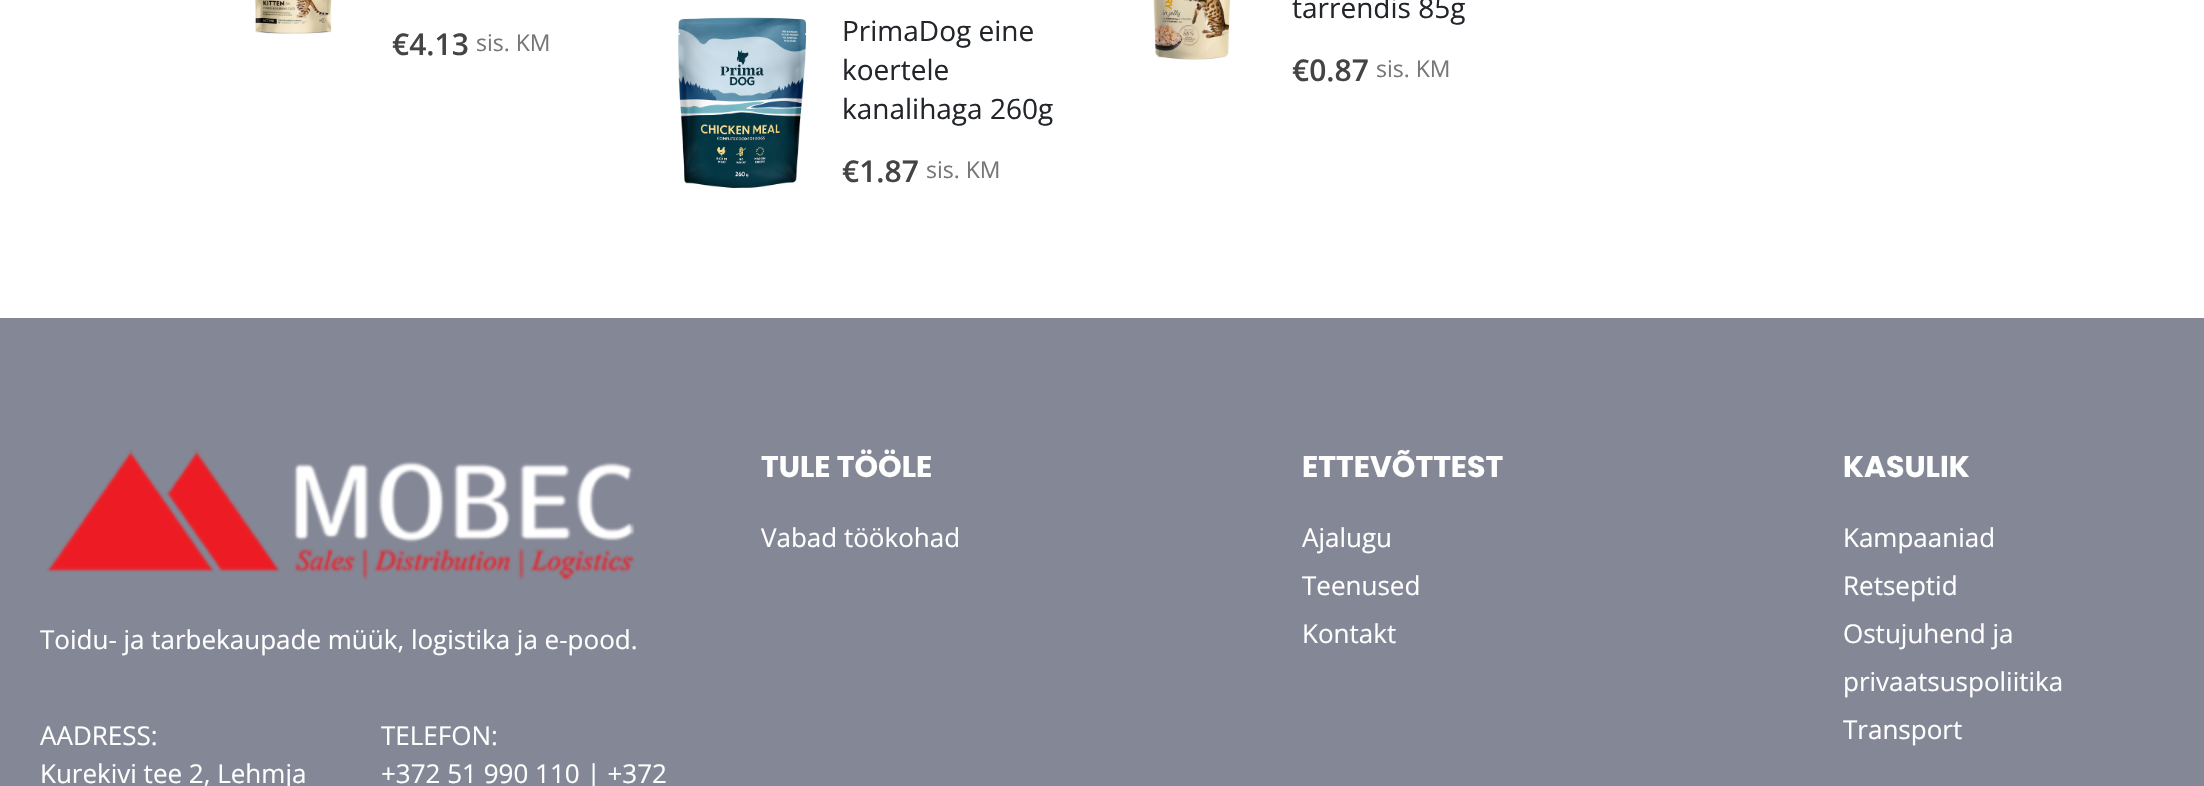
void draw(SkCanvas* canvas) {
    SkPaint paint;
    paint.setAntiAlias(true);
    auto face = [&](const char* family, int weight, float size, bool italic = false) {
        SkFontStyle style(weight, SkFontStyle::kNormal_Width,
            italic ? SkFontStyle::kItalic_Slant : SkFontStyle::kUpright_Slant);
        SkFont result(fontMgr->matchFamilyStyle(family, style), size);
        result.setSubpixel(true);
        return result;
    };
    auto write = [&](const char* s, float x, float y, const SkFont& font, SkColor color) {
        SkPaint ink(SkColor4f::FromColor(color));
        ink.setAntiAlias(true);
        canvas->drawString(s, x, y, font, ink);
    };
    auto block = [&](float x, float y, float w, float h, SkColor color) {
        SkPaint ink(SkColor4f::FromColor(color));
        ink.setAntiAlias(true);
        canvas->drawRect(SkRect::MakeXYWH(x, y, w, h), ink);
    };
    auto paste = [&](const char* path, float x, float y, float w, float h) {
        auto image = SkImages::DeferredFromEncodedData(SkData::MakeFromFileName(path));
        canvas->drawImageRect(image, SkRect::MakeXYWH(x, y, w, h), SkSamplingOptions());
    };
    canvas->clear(SK_ColorWHITE);
    paste("pic1.png", 255, 0, 77, 34);
    auto kFont1 = face("Open Sans", 600, 30);
    write("€4.13", 392, 55, kFont1, SkColorSetRGB(68, 68, 68));
    auto kFont2 = face("Open Sans", 400, 23);
    write("sis. KM", 476, 51, kFont2, SkColorSetRGB(119, 119, 119));
    paste("pic2.png", 678, 17, 129, 172);
    auto kFont3 = face("Open Sans", 400, 28);
    write("PrimaDog eine", 842, 41, kFont3, SkColorSetRGB(34, 37, 41));
    write("koertele", 842, 80, kFont3, SkColorSetRGB(34, 37, 41));
    write("kanalihaga 260g", 842, 119, kFont3, SkColorSetRGB(34, 37, 41));
    write("€1.87", 842, 182, kFont1, SkColorSetRGB(68, 68, 68));
    write("sis. KM", 926, 178, kFont2, SkColorSetRGB(119, 119, 119));
    paste("pic3.png", 1153, 0, 78, 60);
    write("tarrendis 85g", 1292, 18, kFont3, SkColorSetRGB(34, 37, 41));
    write("€0.87", 1292, 81, kFont1, SkColorSetRGB(68, 68, 68));
    write("sis. KM", 1376, 77, kFont2, SkColorSetRGB(119, 119, 119));
    block(0, 318, 2204, 468, SkColorSetRGB(132, 135, 150));
    paste("pic4.png", 46, 449, 589, 132);
    auto kFont4 = face("Open Sans", 400, 26);
    write("Toidu- ja tarbekaupade müük, logistika ja e-pood.", 40, 649, kFont4, SK_ColorWHITE);
    write("AADRESS:", 40, 745, kFont4, SK_ColorWHITE);
    write("Kurekivi tee 2, Lehmja", 40, 783, kFont4, SK_ColorWHITE);
    write("TELEFON:", 381, 745, kFont4, SK_ColorWHITE);
    write("+372 51 990 110 | +372", 381, 783, kFont4, SK_ColorWHITE);
    auto kFont5 = face("Poppins", 700, 30);
    write("TULE TÖÖLE", 761, 477, kFont5, SK_ColorWHITE);
    write("Vabad töökohad", 761, 547, kFont4, SK_ColorWHITE);
    write("ETTEVÕTTEST", 1302, 477, kFont5, SK_ColorWHITE);
    write("Ajalugu", 1302, 547, kFont4, SK_ColorWHITE);
    write("Teenused", 1302, 595, kFont4, SK_ColorWHITE);
    write("Kontakt", 1302, 643, kFont4, SK_ColorWHITE);
    write("KASULIK", 1843, 477, kFont5, SK_ColorWHITE);
    write("Kampaaniad", 1843, 547, kFont4, SK_ColorWHITE);
    write("Retseptid", 1843, 595, kFont4, SK_ColorWHITE);
    write("Ostujuhend ja", 1843, 643, kFont4, SK_ColorWHITE);
    write("privaatsuspoliitika", 1843, 691, kFont4, SK_ColorWHITE);
    write("Transport", 1843, 739, kFont4, SK_ColorWHITE);
}
